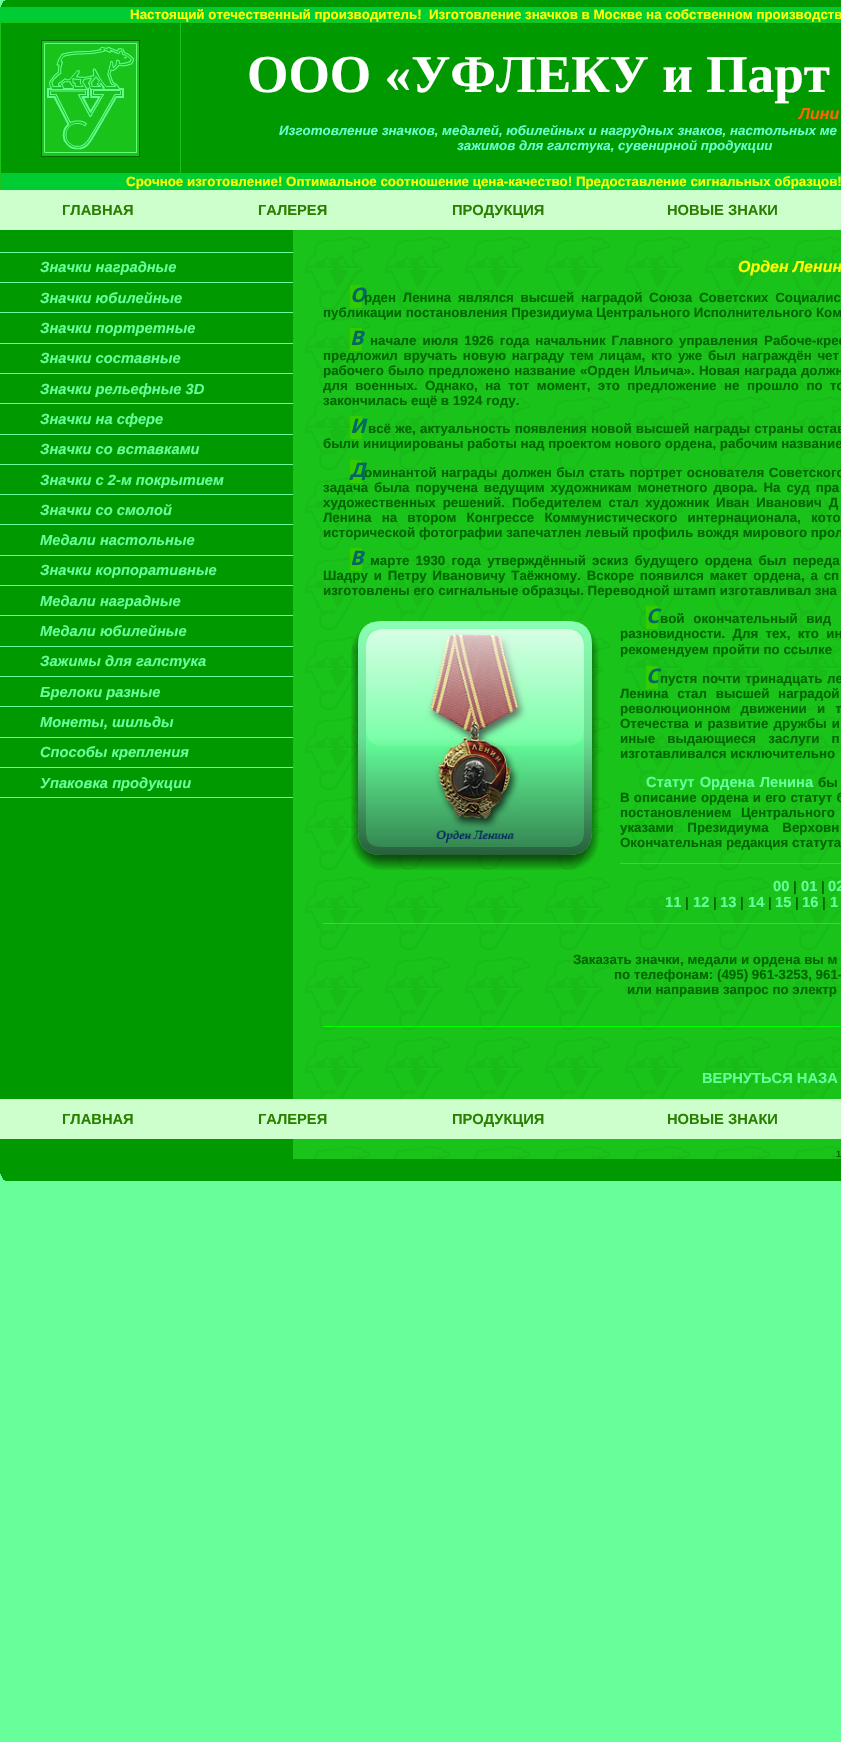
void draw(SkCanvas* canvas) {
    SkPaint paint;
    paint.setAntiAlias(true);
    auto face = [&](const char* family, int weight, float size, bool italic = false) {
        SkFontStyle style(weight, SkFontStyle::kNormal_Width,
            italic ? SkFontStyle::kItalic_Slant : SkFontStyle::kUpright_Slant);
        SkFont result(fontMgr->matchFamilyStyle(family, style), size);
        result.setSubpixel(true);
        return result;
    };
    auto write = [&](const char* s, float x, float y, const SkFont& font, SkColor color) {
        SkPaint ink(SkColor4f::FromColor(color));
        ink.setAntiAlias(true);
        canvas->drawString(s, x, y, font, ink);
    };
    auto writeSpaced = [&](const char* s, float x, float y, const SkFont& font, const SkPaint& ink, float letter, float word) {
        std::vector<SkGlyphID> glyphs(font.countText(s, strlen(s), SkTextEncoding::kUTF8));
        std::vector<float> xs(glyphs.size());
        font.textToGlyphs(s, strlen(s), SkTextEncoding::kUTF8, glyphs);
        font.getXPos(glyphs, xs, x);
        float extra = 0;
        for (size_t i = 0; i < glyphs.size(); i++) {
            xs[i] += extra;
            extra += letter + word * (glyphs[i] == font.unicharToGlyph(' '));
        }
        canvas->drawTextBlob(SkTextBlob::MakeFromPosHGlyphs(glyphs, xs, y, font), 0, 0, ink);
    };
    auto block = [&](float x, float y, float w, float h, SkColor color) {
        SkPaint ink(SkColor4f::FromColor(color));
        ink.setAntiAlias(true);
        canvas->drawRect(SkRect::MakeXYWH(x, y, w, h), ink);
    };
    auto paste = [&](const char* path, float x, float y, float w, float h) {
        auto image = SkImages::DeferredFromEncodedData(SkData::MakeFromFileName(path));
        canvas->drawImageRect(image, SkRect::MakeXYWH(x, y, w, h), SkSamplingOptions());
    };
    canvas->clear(SkColorSetRGB(102, 255, 153));
    block(5, 0, 836, 1, SkColorSetRGB(0, 153, 0));
    block(3, 1, 838, 2, SkColorSetRGB(0, 153, 0));
    block(2, 3, 839, 2, SkColorSetRGB(0, 153, 0));
    block(1, 5, 840, 2, SkColorSetRGB(0, 153, 0));
    block(0, 7, 841, 15, SkColorSetRGB(0, 204, 51));
    auto kFont1 = face("Liberation Sans", 700, 13.33f);
    write("Настоящий отечественный производитель!  Изготовление значков в Москве на собственном производств", 130, 19, kFont1, SkColorSetRGB(255, 255, 0));
    block(0, 22, 841, 168, SkColorSetRGB(25, 195, 25));
    block(1, 23, 179, 150, SkColorSetRGB(0, 153, 0));
    paint.setStyle(SkPaint::kStroke_Style);
    paint.setStrokeWidth(1);
    paint.setColor(SkColorSetRGB(0, 102, 0));
    canvas->drawRect(SkRect::MakeXYWH(41.5f, 40.5f, 98, 116), paint);
    paste("pic1.png", 42, 41, 97, 115);
    block(181, 23, 660, 150, SkColorSetRGB(0, 153, 0));
    auto kFont2 = face("Liberation Serif", 700, 53.25f);
    write("ООО «УФЛЕКУ и Парт", 247, 92, kFont2, SK_ColorWHITE);
    auto kFont3 = face("Liberation Sans", 700, 16, true);
    write("Лини", 799, 119, kFont3, SkColorSetRGB(255, 102, 0));
    auto kFont4 = face("Liberation Sans", 700, 13.33f, true);
    write("Изготовление значков, медалей, юбилейных и нагрудных знаков, настольных ме", 279, 135, kFont4, SkColorSetRGB(102, 255, 204));
    write("зажимов для галстука, сувенирной продукции", 457, 150, kFont4, SkColorSetRGB(102, 255, 204));
    block(1, 174, 840, 15, SkColorSetRGB(0, 204, 51));
    write("Срочное изготовление! Оптимальное соотношение цена-качество! Предоставление сигнальных образцов!", 126, 186, kFont1, SkColorSetRGB(255, 255, 0));
    block(0, 190, 841, 40, SkColorSetRGB(204, 255, 204));
    auto kFont5 = face("Liberation Sans", 700, 14.7f);
    write("ГЛАВНАЯ", 62, 215, kFont5, SkColorSetRGB(42, 127, 0));
    write("ГАЛЕРЕЯ", 258, 215, kFont5, SkColorSetRGB(42, 127, 0));
    write("ПРОДУКЦИЯ", 452, 215, kFont5, SkColorSetRGB(42, 127, 0));
    write("НОВЫЕ ЗНАКИ", 667, 215, kFont5, SkColorSetRGB(42, 127, 0));
    block(0, 230, 293, 869, SkColorSetRGB(0, 153, 0));
    block(0, 252, 293, 1, SkColorSetRGB(102, 255, 153));
    auto kFont6 = face("Liberation Sans", 700, 14.7f, true);
    write("Значки наградные", 40, 272, kFont6, SkColorSetRGB(102, 255, 153));
    block(0, 282, 293, 1, SkColorSetRGB(102, 255, 153));
    write("Значки юбилейные", 40, 303, kFont6, SkColorSetRGB(102, 255, 153));
    block(0, 312, 293, 1, SkColorSetRGB(102, 255, 153));
    write("Значки портретные", 40, 333, kFont6, SkColorSetRGB(102, 255, 153));
    block(0, 343, 293, 1, SkColorSetRGB(102, 255, 153));
    write("Значки составные", 40, 363, kFont6, SkColorSetRGB(102, 255, 153));
    block(0, 373, 293, 1, SkColorSetRGB(102, 255, 153));
    write("Значки рельефные 3D", 40, 394, kFont6, SkColorSetRGB(102, 255, 153));
    block(0, 403, 293, 1, SkColorSetRGB(102, 255, 153));
    write("Значки на сфере", 40, 424, kFont6, SkColorSetRGB(102, 255, 153));
    block(0, 434, 293, 1, SkColorSetRGB(102, 255, 153));
    write("Значки со вставками", 40, 454, kFont6, SkColorSetRGB(102, 255, 153));
    block(0, 464, 293, 1, SkColorSetRGB(102, 255, 153));
    write("Значки с 2-м покрытием", 40, 485, kFont6, SkColorSetRGB(102, 255, 153));
    block(0, 494, 293, 1, SkColorSetRGB(102, 255, 153));
    write("Значки со смолой", 40, 515, kFont6, SkColorSetRGB(102, 255, 153));
    block(0, 524, 293, 1, SkColorSetRGB(102, 255, 153));
    write("Медали настольные", 40, 545, kFont6, SkColorSetRGB(102, 255, 153));
    block(0, 555, 293, 1, SkColorSetRGB(102, 255, 153));
    write("Значки корпоративные", 40, 575, kFont6, SkColorSetRGB(102, 255, 153));
    block(0, 585, 293, 1, SkColorSetRGB(102, 255, 153));
    write("Медали наградные", 40, 606, kFont6, SkColorSetRGB(102, 255, 153));
    block(0, 615, 293, 1, SkColorSetRGB(102, 255, 153));
    write("Медали юбилейные", 40, 636, kFont6, SkColorSetRGB(102, 255, 153));
    block(0, 646, 293, 1, SkColorSetRGB(102, 255, 153));
    write("Зажимы для галстука", 40, 666, kFont6, SkColorSetRGB(102, 255, 153));
    block(0, 676, 293, 1, SkColorSetRGB(102, 255, 153));
    write("Брелоки разные", 40, 697, kFont6, SkColorSetRGB(102, 255, 153));
    block(0, 706, 293, 1, SkColorSetRGB(102, 255, 153));
    write("Монеты, шильды", 40, 727, kFont6, SkColorSetRGB(102, 255, 153));
    block(0, 737, 293, 1, SkColorSetRGB(102, 255, 153));
    write("Способы крепления", 40, 757, kFont6, SkColorSetRGB(102, 255, 153));
    block(0, 767, 293, 1, SkColorSetRGB(102, 255, 153));
    write("Упаковка продукции", 40, 788, kFont6, SkColorSetRGB(102, 255, 153));
    block(0, 797, 293, 1, SkColorSetRGB(102, 255, 153));
    paste("pic2.png", 293, 230, 548, 869);
    write("Орден Ленин", 738, 272, kFont3, SkColorSetRGB(255, 255, 0));
    block(350, 285, 12, 23, SkColorSetRGB(51, 204, 0));
    auto kFont7 = face("Noto Sans", 700, 20, true);
    write("О", 350, 302, kFont7, SkColorSetRGB(0, 102, 102));
    paint.setStyle(SkPaint::kFill_Style);
    writeSpaced("рден Ленина являлся высшей наградой Союза Советских Социалис", 364, 302, kFont1, paint, 0, 3);
    write("публикации постановления Президиума Центрального Исполнительного Ком", 323, 317, kFont1, SkColorSetRGB(0, 102, 0));
    block(350, 328, 12, 23, SkColorSetRGB(51, 204, 0));
    write("В", 350, 345, kFont7, SkColorSetRGB(0, 102, 102));
    writeSpaced("начале июля 1926 года начальник Главного управления Рабоче-крес", 370, 345, kFont1, paint, 0, 2.25f);
    writeSpaced("предложил вручать новую награду тем лицам, кто уже был награждён чет", 323, 360, kFont1, paint, 0, 2);
    writeSpaced("рабочего было предложено название «Орден Ильича». Новая награда должн", 323, 375, kFont1, paint, 0, 0.5f);
    writeSpaced("для военных. Однако, на тот момент, это предложение не прошло по то", 323, 390, kFont1, paint, 0, 3.75f);
    write("закончилась ещё в 1924 году.", 323, 405, kFont1, SkColorSetRGB(0, 102, 0));
    block(350, 416, 12, 23, SkColorSetRGB(51, 204, 0));
    write("И", 350, 433, kFont7, SkColorSetRGB(0, 102, 102));
    writeSpaced("всё же, актуальность появления новой высшей награды страны остав", 368, 433, kFont1, paint, 0, 0.5f);
    write("были инициированы работы над проектом нового ордена, рабочим название", 323, 448, kFont1, SkColorSetRGB(0, 102, 0));
    block(350, 460, 12, 23, SkColorSetRGB(51, 204, 0));
    write("Д", 350, 477, kFont7, SkColorSetRGB(0, 102, 102));
    writeSpaced("оминантой награды должен был стать портрет основателя Советского", 364, 477, kFont1, paint, 0, 0.75f);
    writeSpaced("задача была поручена ведущим художникам монетного двора. На суд пра", 323, 492, kFont1, paint, 0, 2.25f);
    writeSpaced("художественных решений. Победителем стал художник Иван Иванович Д", 323, 507, kFont1, paint, 0, 3.25f);
    writeSpaced("Ленина на втором Конгрессе Коммунистического интернационала, кото", 323, 522, kFont1, paint, 0, 6.5f);
    write("исторической фотографии запечатлен левый профиль вождя мирового прол", 323, 537, kFont1, SkColorSetRGB(0, 102, 0));
    block(350, 548, 12, 23, SkColorSetRGB(51, 204, 0));
    write("В", 350, 565, kFont7, SkColorSetRGB(0, 102, 102));
    writeSpaced("марте 1930 года утверждённый эскиз будущего ордена был переда", 370, 565, kFont1, paint, 0, 2.5f);
    writeSpaced("Шадру и Петру Ивановичу Таёжному. Вскоре появился макет ордена, а сп", 323, 580, kFont1, paint, 0, 2.1f);
    write("изготовлены его сигнальные образцы. Переводной штамп изготавливал зна", 323, 595, kFont1, SkColorSetRGB(0, 102, 0));
    block(646, 606, 12, 23, SkColorSetRGB(51, 204, 0));
    write("С", 646, 623, kFont7, SkColorSetRGB(0, 102, 102));
    writeSpaced("вой окончательный вид", 660, 623, kFont1, paint, 0, 5);
    paste("pic3.png", 351, 621, 248, 249);
    writeSpaced("разновидности. Для тех, кто ин", 620, 638, kFont1, paint, 0, 3.5f);
    write("рекомендуем пройти по ссылке", 620, 654, kFont1, SkColorSetRGB(0, 102, 0));
    block(646, 666, 12, 23, SkColorSetRGB(51, 204, 0));
    write("С", 646, 683, kFont7, SkColorSetRGB(0, 102, 102));
    writeSpaced("пустя почти тринадцать ле", 660, 683, kFont1, paint, 0, 1);
    writeSpaced("Ленина стал высшей наградой", 620, 698, kFont1, paint, 0, 5);
    writeSpaced("революционном движении и т", 620, 713, kFont1, paint, 0, 6.5f);
    writeSpaced("Отечества и развитие дружбы и", 620, 728, kFont1, paint, 0, 1.5f);
    writeSpaced("иные выдающиеся заслуги п", 620, 743, kFont1, paint, 0, 8.5f);
    write("изготавливался исключительно", 620, 758, kFont1, SkColorSetRGB(0, 102, 0));
    paint.setColor(SkColorSetRGB(102, 255, 153));
    writeSpaced("Статут Ордена Ленина", 646, 787, kFont5, paint, 0, 1);
    paint.setColor(SkColorSetRGB(0, 102, 0));
    writeSpaced("бы", 818, 787, kFont1, paint, 0, 1);
    writeSpaced("В описание ордена и его статут б", 620, 802, kFont1, paint, 0, 0.5f);
    writeSpaced("постановлением Центрального", 620, 817, kFont1, paint, 0, 6);
    writeSpaced("указами Президиума Верховн", 620, 832, kFont1, paint, 0, 10);
    write("Окончательная редакция статута", 620, 847, kFont1, SkColorSetRGB(0, 102, 0));
    block(620, 863, 221, 1, SkColorSetRGB(0, 255, 0));
    write("00", 773, 891, kFont5, SkColorSetRGB(102, 255, 153));
    write("|", 793, 891, kFont1, SkColorSetRGB(0, 102, 0));
    write("01", 801, 891, kFont5, SkColorSetRGB(102, 255, 153));
    write("|", 821, 891, kFont1, SkColorSetRGB(0, 102, 0));
    write("02", 828, 891, kFont5, SkColorSetRGB(102, 255, 153));
    write("11", 665, 907, kFont5, SkColorSetRGB(102, 255, 153));
    write("|", 685, 907, kFont1, SkColorSetRGB(0, 102, 0));
    write("12", 693, 907, kFont5, SkColorSetRGB(102, 255, 153));
    write("|", 713, 907, kFont1, SkColorSetRGB(0, 102, 0));
    write("13", 720, 907, kFont5, SkColorSetRGB(102, 255, 153));
    write("|", 740, 907, kFont1, SkColorSetRGB(0, 102, 0));
    write("14", 748, 907, kFont5, SkColorSetRGB(102, 255, 153));
    write("|", 768, 907, kFont1, SkColorSetRGB(0, 102, 0));
    write("15", 775, 907, kFont5, SkColorSetRGB(102, 255, 153));
    write("|", 795, 907, kFont1, SkColorSetRGB(0, 102, 0));
    write("16", 802, 907, kFont5, SkColorSetRGB(102, 255, 153));
    write("|", 822, 907, kFont1, SkColorSetRGB(0, 102, 0));
    write("1", 830, 907, kFont5, SkColorSetRGB(102, 255, 153));
    block(323, 923, 518, 1, SkColorSetRGB(0, 255, 0));
    write("Заказать значки, медали и ордена вы м", 573, 964, kFont1, SkColorSetRGB(0, 102, 0));
    write("по телефонам: (495) 961-3253, 961-", 614, 979, kFont1, SkColorSetRGB(0, 102, 0));
    write("или направив запрос по электр", 627, 994, kFont1, SkColorSetRGB(0, 102, 0));
    block(323, 1026, 518, 1, SkColorSetRGB(0, 255, 0));
    write("ВЕРНУТЬСЯ НАЗА", 702, 1083, kFont5, SkColorSetRGB(102, 255, 153));
    block(0, 1099, 841, 40, SkColorSetRGB(204, 255, 204));
    write("ГЛАВНАЯ", 62, 1124, kFont5, SkColorSetRGB(42, 127, 0));
    write("ГАЛЕРЕЯ", 258, 1124, kFont5, SkColorSetRGB(42, 127, 0));
    write("ПРОДУКЦИЯ", 452, 1124, kFont5, SkColorSetRGB(42, 127, 0));
    write("НОВЫЕ ЗНАКИ", 667, 1124, kFont5, SkColorSetRGB(42, 127, 0));
    block(0, 1139, 293, 20, SkColorSetRGB(0, 153, 0));
    paste("pic4.png", 293, 1139, 548, 20);
    auto kFont8 = face("Liberation Sans", 700, 9);
    write("1", 836, 1157, kFont8, SkColorSetRGB(0, 102, 0));
    block(0, 1159, 841, 15, SkColorSetRGB(0, 153, 0));
    block(1, 1174, 840, 2, SkColorSetRGB(0, 153, 0));
    block(2, 1176, 839, 2, SkColorSetRGB(0, 153, 0));
    block(3, 1178, 838, 2, SkColorSetRGB(0, 153, 0));
    block(5, 1180, 836, 1, SkColorSetRGB(0, 153, 0));
}
